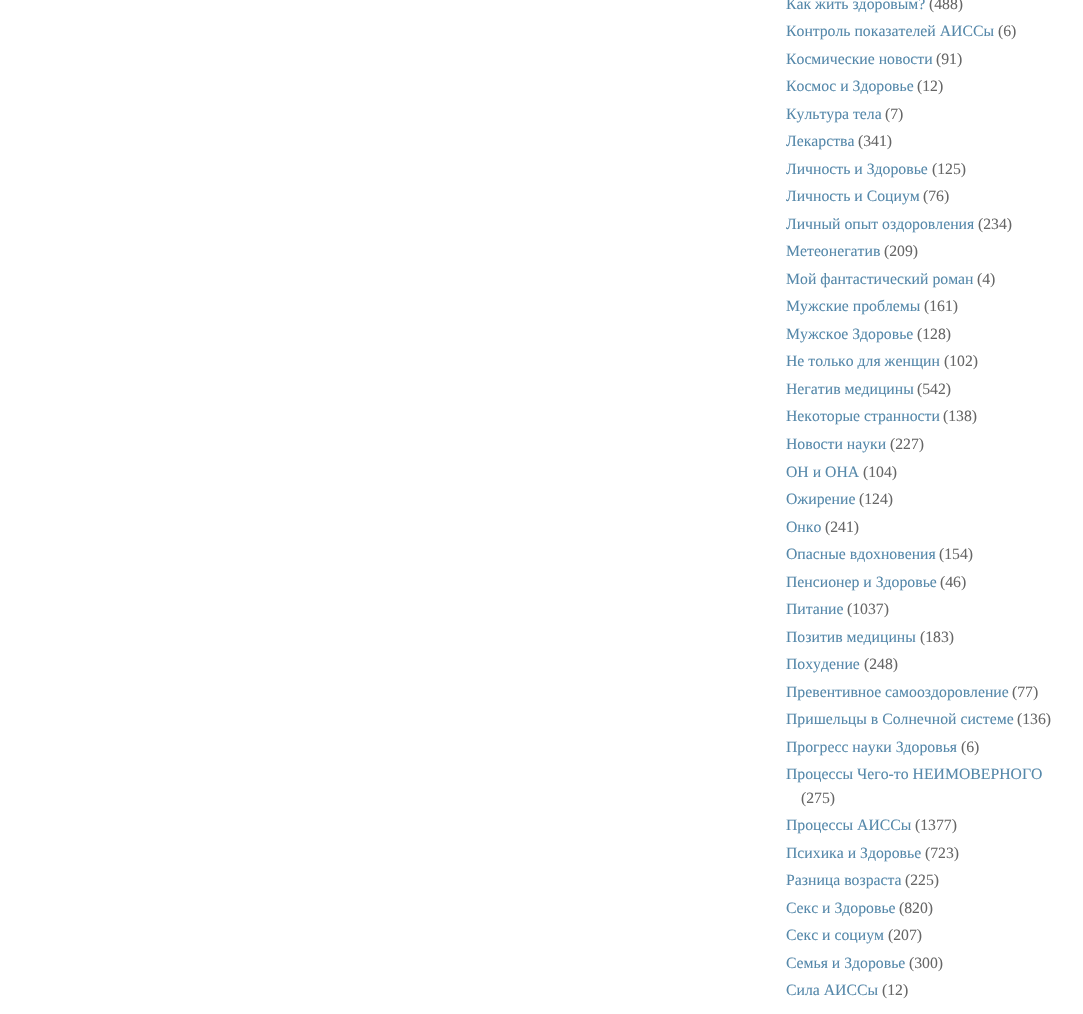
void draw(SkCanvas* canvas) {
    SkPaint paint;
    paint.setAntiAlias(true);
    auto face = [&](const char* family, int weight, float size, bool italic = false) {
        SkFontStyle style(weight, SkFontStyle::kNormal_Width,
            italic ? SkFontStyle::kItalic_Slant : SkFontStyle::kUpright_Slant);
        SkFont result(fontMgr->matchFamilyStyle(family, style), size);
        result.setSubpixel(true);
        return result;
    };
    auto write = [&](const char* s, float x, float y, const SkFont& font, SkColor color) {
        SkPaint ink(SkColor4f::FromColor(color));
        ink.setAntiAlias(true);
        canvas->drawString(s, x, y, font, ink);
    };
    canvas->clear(SK_ColorWHITE);
    auto kFont1 = face("Liberation Serif", 400, 15.75f);
    write("Как жить здоровым?", 786, 9, kFont1, SkColorSetRGB(85, 136, 170));
    write("(488)", 929, 9, kFont1, SkColorSetRGB(102, 102, 102));
    write("Контроль показателей АИССы", 786, 36, kFont1, SkColorSetRGB(85, 136, 170));
    write("(6)", 998, 36, kFont1, SkColorSetRGB(102, 102, 102));
    write("Космические новости", 786, 64, kFont1, SkColorSetRGB(85, 136, 170));
    write("(91)", 936, 64, kFont1, SkColorSetRGB(102, 102, 102));
    write("Космос и Здоровье", 786, 91, kFont1, SkColorSetRGB(85, 136, 170));
    write("(12)", 917, 91, kFont1, SkColorSetRGB(102, 102, 102));
    write("Культура тела", 786, 119, kFont1, SkColorSetRGB(85, 136, 170));
    write("(7)", 885, 119, kFont1, SkColorSetRGB(102, 102, 102));
    write("Лекарства", 786, 146, kFont1, SkColorSetRGB(85, 136, 170));
    write("(341)", 858, 146, kFont1, SkColorSetRGB(102, 102, 102));
    write("Личность и Здоровье", 786, 174, kFont1, SkColorSetRGB(85, 136, 170));
    write("(125)", 932, 174, kFont1, SkColorSetRGB(102, 102, 102));
    write("Личность и Социум", 786, 201, kFont1, SkColorSetRGB(85, 136, 170));
    write("(76)", 923, 201, kFont1, SkColorSetRGB(102, 102, 102));
    write("Личный опыт оздоровления", 786, 229, kFont1, SkColorSetRGB(85, 136, 170));
    write("(234)", 978, 229, kFont1, SkColorSetRGB(102, 102, 102));
    write("Метеонегатив", 786, 256, kFont1, SkColorSetRGB(85, 136, 170));
    write("(209)", 884, 256, kFont1, SkColorSetRGB(102, 102, 102));
    write("Мой фантастический роман", 786, 284, kFont1, SkColorSetRGB(85, 136, 170));
    write("(4)", 977, 284, kFont1, SkColorSetRGB(102, 102, 102));
    write("Мужские проблемы", 786, 311, kFont1, SkColorSetRGB(85, 136, 170));
    write("(161)", 924, 311, kFont1, SkColorSetRGB(102, 102, 102));
    write("Мужское Здоровье", 786, 339, kFont1, SkColorSetRGB(85, 136, 170));
    write("(128)", 917, 339, kFont1, SkColorSetRGB(102, 102, 102));
    write("Не только для женщин", 786, 366, kFont1, SkColorSetRGB(85, 136, 170));
    write("(102)", 944, 366, kFont1, SkColorSetRGB(102, 102, 102));
    write("Негатив медицины", 786, 394, kFont1, SkColorSetRGB(85, 136, 170));
    write("(542)", 917, 394, kFont1, SkColorSetRGB(102, 102, 102));
    write("Некоторые странности", 786, 421, kFont1, SkColorSetRGB(85, 136, 170));
    write("(138)", 943, 421, kFont1, SkColorSetRGB(102, 102, 102));
    write("Новости науки", 786, 449, kFont1, SkColorSetRGB(85, 136, 170));
    write("(227)", 890, 449, kFont1, SkColorSetRGB(102, 102, 102));
    write("ОН и ОНА", 786, 477, kFont1, SkColorSetRGB(85, 136, 170));
    write("(104)", 863, 477, kFont1, SkColorSetRGB(102, 102, 102));
    write("Ожирение", 786, 504, kFont1, SkColorSetRGB(85, 136, 170));
    write("(124)", 859, 504, kFont1, SkColorSetRGB(102, 102, 102));
    write("Онко", 786, 532, kFont1, SkColorSetRGB(85, 136, 170));
    write("(241)", 825, 532, kFont1, SkColorSetRGB(102, 102, 102));
    write("Опасные вдохновения", 786, 559, kFont1, SkColorSetRGB(85, 136, 170));
    write("(154)", 939, 559, kFont1, SkColorSetRGB(102, 102, 102));
    write("Пенсионер и Здоровье", 786, 587, kFont1, SkColorSetRGB(85, 136, 170));
    write("(46)", 940, 587, kFont1, SkColorSetRGB(102, 102, 102));
    write("Питание", 786, 614, kFont1, SkColorSetRGB(85, 136, 170));
    write("(1037)", 847, 614, kFont1, SkColorSetRGB(102, 102, 102));
    write("Позитив медицины", 786, 642, kFont1, SkColorSetRGB(85, 136, 170));
    write("(183)", 920, 642, kFont1, SkColorSetRGB(102, 102, 102));
    write("Похудение", 786, 669, kFont1, SkColorSetRGB(85, 136, 170));
    write("(248)", 864, 669, kFont1, SkColorSetRGB(102, 102, 102));
    write("Превентивное самооздоровление", 786, 697, kFont1, SkColorSetRGB(85, 136, 170));
    write("(77)", 1012, 697, kFont1, SkColorSetRGB(102, 102, 102));
    write("Пришельцы в Солнечной системе", 786, 724, kFont1, SkColorSetRGB(85, 136, 170));
    write("(136)", 1017, 724, kFont1, SkColorSetRGB(102, 102, 102));
    write("Прогресс науки Здоровья", 786, 752, kFont1, SkColorSetRGB(85, 136, 170));
    write("(6)", 961, 752, kFont1, SkColorSetRGB(102, 102, 102));
    write("Процессы Чего-то НЕИМОВЕРНОГО", 786, 779, kFont1, SkColorSetRGB(85, 136, 170));
    write("(275)", 801, 803, kFont1, SkColorSetRGB(102, 102, 102));
    write("Процессы АИССы", 786, 830, kFont1, SkColorSetRGB(85, 136, 170));
    write("(1377)", 915, 830, kFont1, SkColorSetRGB(102, 102, 102));
    write("Психика и Здоровье", 786, 858, kFont1, SkColorSetRGB(85, 136, 170));
    write("(723)", 925, 858, kFont1, SkColorSetRGB(102, 102, 102));
    write("Разница возраста", 786, 885, kFont1, SkColorSetRGB(85, 136, 170));
    write("(225)", 905, 885, kFont1, SkColorSetRGB(102, 102, 102));
    write("Секс и Здоровье", 786, 913, kFont1, SkColorSetRGB(85, 136, 170));
    write("(820)", 899, 913, kFont1, SkColorSetRGB(102, 102, 102));
    write("Секс и социум", 786, 940, kFont1, SkColorSetRGB(85, 136, 170));
    write("(207)", 888, 940, kFont1, SkColorSetRGB(102, 102, 102));
    write("Семья и Здоровье", 786, 968, kFont1, SkColorSetRGB(85, 136, 170));
    write("(300)", 909, 968, kFont1, SkColorSetRGB(102, 102, 102));
    write("Сила АИССы", 786, 995, kFont1, SkColorSetRGB(85, 136, 170));
    write("(12)", 882, 995, kFont1, SkColorSetRGB(102, 102, 102));
}
